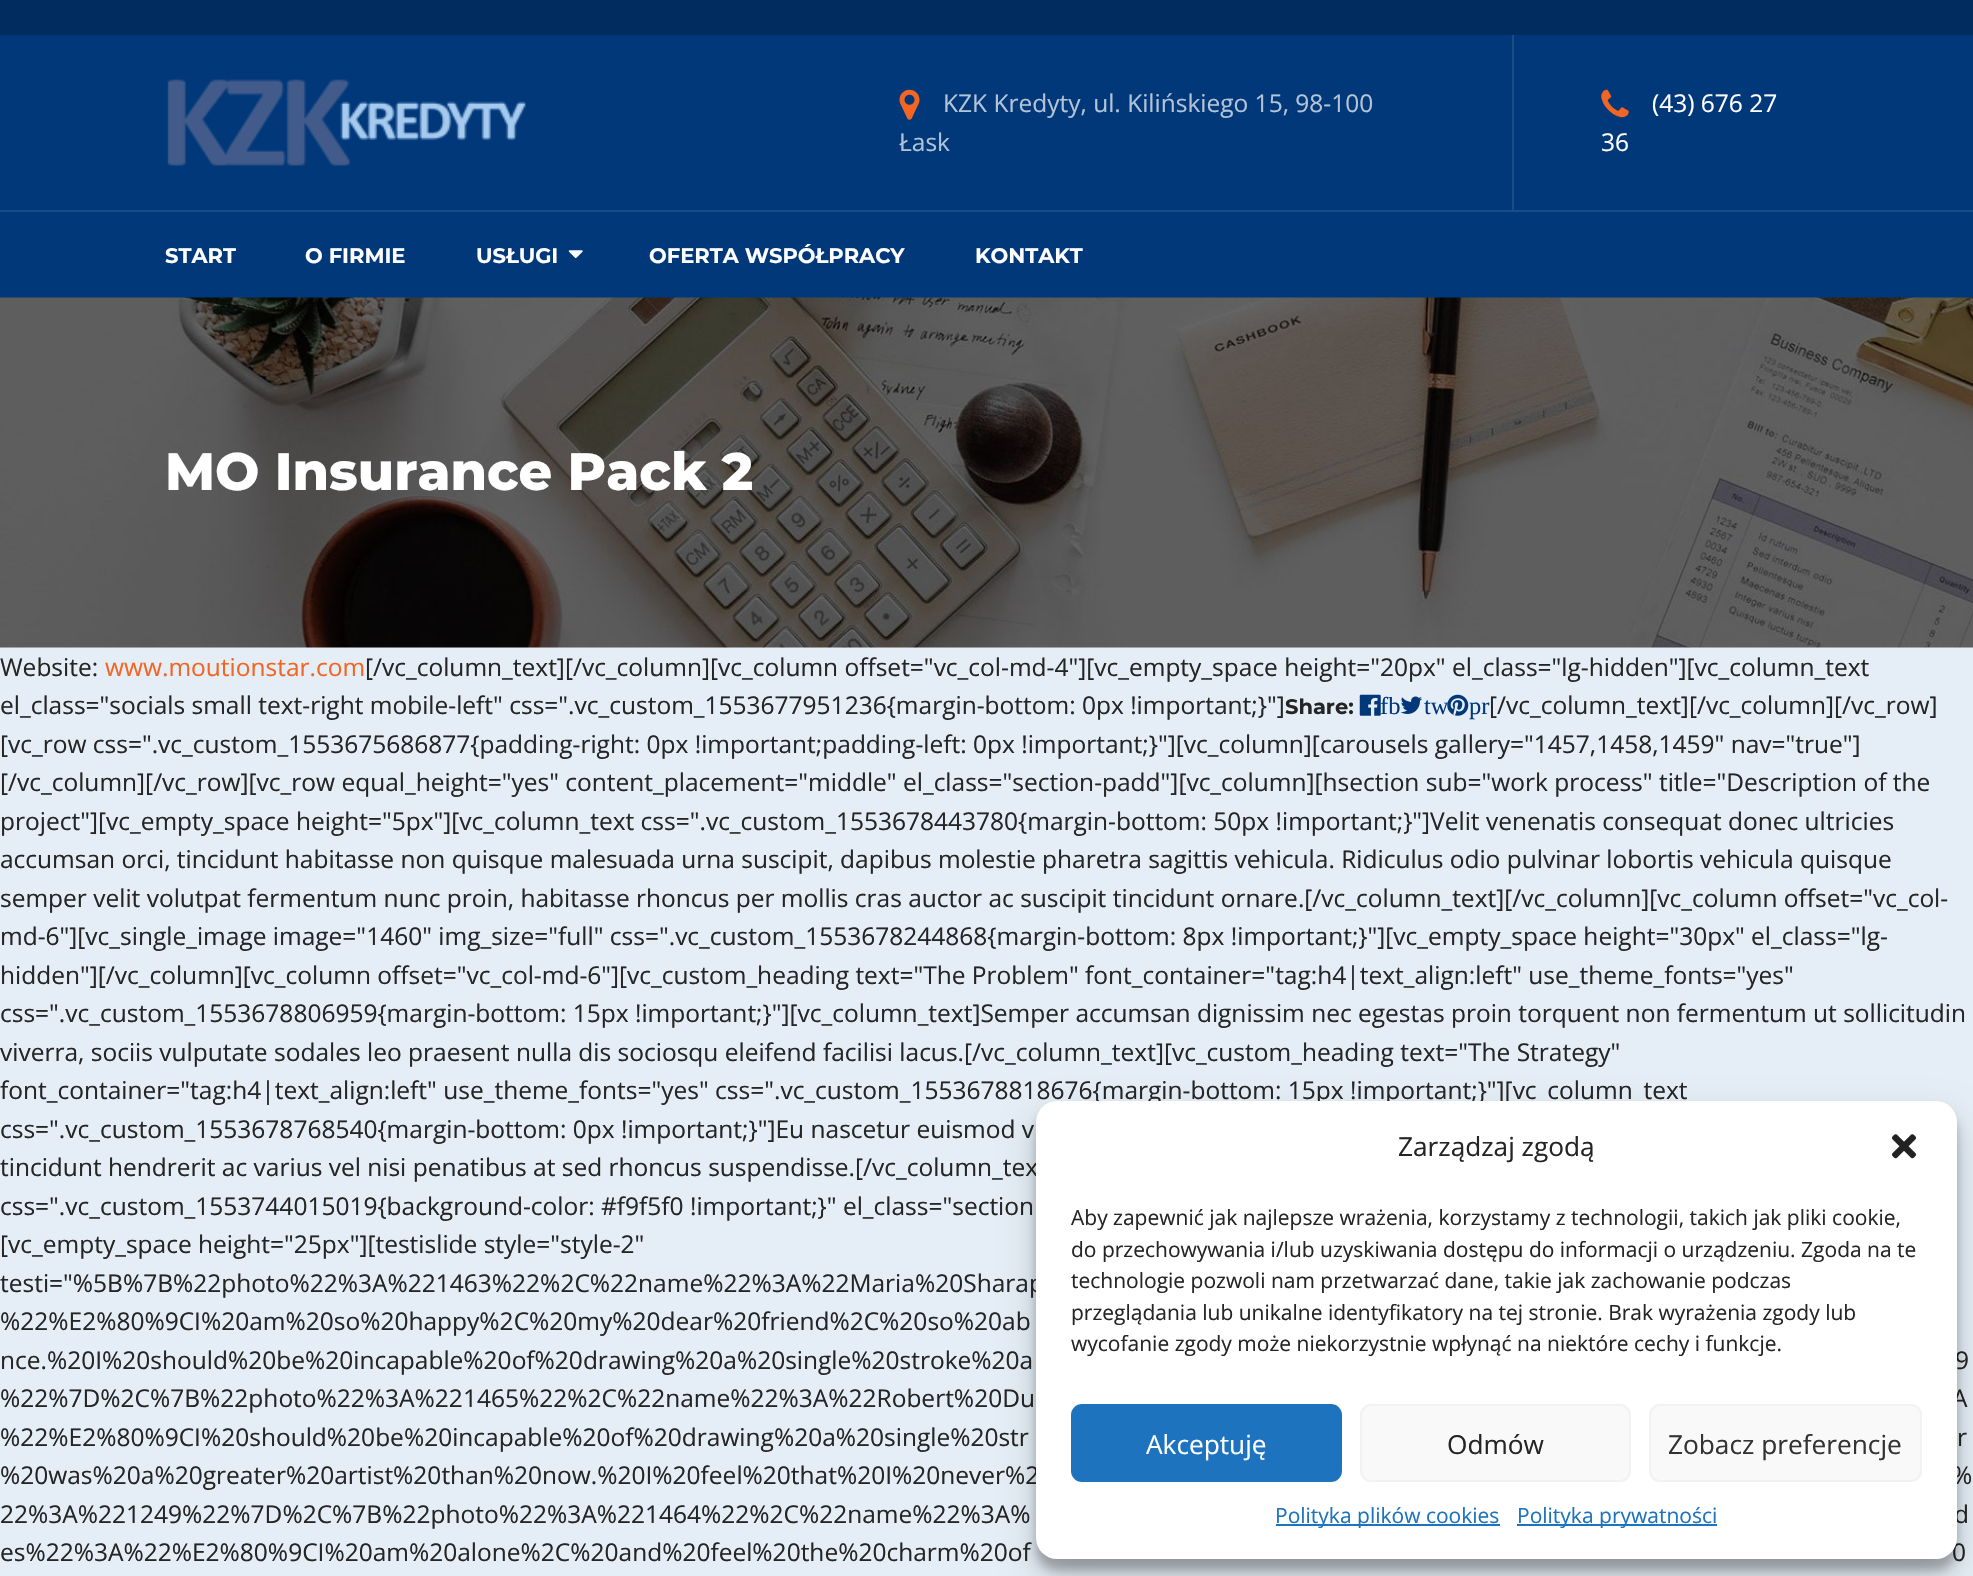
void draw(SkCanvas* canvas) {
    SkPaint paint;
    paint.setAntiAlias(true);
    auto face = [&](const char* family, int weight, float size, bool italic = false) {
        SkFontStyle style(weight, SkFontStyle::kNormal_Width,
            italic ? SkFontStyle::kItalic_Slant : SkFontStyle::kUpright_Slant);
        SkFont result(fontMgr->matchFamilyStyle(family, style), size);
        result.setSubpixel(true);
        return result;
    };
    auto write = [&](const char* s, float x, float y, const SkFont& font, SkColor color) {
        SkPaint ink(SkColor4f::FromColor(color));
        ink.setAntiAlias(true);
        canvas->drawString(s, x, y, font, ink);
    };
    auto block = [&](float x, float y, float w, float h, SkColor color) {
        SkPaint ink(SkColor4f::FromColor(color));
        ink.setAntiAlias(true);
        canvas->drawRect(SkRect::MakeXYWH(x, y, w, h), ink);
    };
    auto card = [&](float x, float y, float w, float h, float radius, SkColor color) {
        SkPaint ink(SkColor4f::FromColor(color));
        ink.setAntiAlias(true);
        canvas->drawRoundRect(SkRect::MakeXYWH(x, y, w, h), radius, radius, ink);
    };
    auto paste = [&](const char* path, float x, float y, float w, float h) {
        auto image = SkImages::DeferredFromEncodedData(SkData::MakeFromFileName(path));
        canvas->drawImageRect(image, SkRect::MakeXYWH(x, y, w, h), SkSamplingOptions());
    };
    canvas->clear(SkColorSetRGB(0, 56, 122));
    block(0, 0, 1973, 35, SkColorSetRGB(0, 44, 96));
    paste("pic1.png", 167, 79, 359, 87);
    paste("pic2.png", 899, 89, 21, 31);
    auto kFont1 = face("Open Sans", 400, 24.5f);
    write("KZK Kredyty, ul. Kilińskiego 15, 98-100", 943, 112, kFont1, SkColorSetRGB(179, 196, 215));
    write("Łask", 899, 151, kFont1, SkColorSetRGB(179, 196, 215));
    block(1512, 35, 2, 175, SkColorSetRGB(26, 76, 135));
    paste("pic3.png", 1601, 89, 28, 29);
    write("(43) 676 27", 1652, 112, kFont1, SK_ColorWHITE);
    write("36", 1601, 151, kFont1, SK_ColorWHITE);
    block(0, 210, 1973, 2, SkColorSetRGB(26, 76, 135));
    auto kFont2 = face("Montserrat", 700, 21);
    write("START", 165, 263, kFont2, SK_ColorWHITE);
    write("O FIRMIE", 305, 263, kFont2, SK_ColorWHITE);
    write("USŁUGI", 476, 263, kFont2, SK_ColorWHITE);
    paste("pic4.png", 568, 250, 15, 9);
    write("OFERTA WSPÓŁPRACY", 649, 263, kFont2, SK_ColorWHITE);
    write("KONTAKT", 975, 263, kFont2, SK_ColorWHITE);
    block(0, 647, 1973, 929, SkColorSetRGB(229, 238, 246));
    paste("pic5.png", 0, 297, 1973, 351);
    auto kFont3 = face("Montserrat", 800, 52.5f);
    write("MO Insurance Pack 2", 165, 490, kFont3, SK_ColorWHITE);
    write("Website:", 0, 676, kFont1, SkColorSetRGB(37, 37, 37));
    write("www.moutionstar.com", 105, 676, kFont1, SkColorSetRGB(242, 101, 34));
    write("[/vc_column_text][/vc_column][vc_column offset=\"vc_col-md-4\"][vc_empty_space height=\"20px\" el_class=\"lg-hidden\"][vc_column_text", 365, 676, kFont1, SkColorSetRGB(37, 37, 37));
    write("el_class=\"socials small text-right mobile-left\" css=\".vc_custom_1553677951236{margin-bottom: 0px !important;}\"]", 0, 714, kFont1, SkColorSetRGB(37, 37, 37));
    write("Share:", 1285, 714, kFont2, SkColorSetRGB(37, 37, 37));
    paste("pic6.png", 1359, 694, 22, 22);
    auto kFont4 = face("Liberation Serif", 400, 24.5f);
    write("fb", 1380, 714, kFont4, SkColorSetRGB(0, 56, 122));
    paste("pic7.png", 1400, 696, 22, 18);
    write("tw", 1424, 714, kFont4, SkColorSetRGB(0, 56, 122));
    paste("pic8.png", 1447, 694, 22, 22);
    write("pr", 1469, 714, kFont4, SkColorSetRGB(0, 56, 122));
    write("[/vc_column_text][/vc_column][/vc_row]", 1489, 714, kFont1, SkColorSetRGB(37, 37, 37));
    write("[vc_row css=\".vc_custom_1553675686877{padding-right: 0px !important;padding-left: 0px !important;}\"][vc_column][carousels gallery=\"1457,1458,1459\" nav=\"true\"]", 0, 753, kFont1, SkColorSetRGB(37, 37, 37));
    write("[/vc_column][/vc_row][vc_row equal_height=\"yes\" content_placement=\"middle\" el_class=\"section-padd\"][vc_column][hsection sub=\"work process\" title=\"Description of the", 0, 791, kFont1, SkColorSetRGB(37, 37, 37));
    write("project\"][vc_empty_space height=\"5px\"][vc_column_text css=\".vc_custom_1553678443780{margin-bottom: 50px !important;}\"]Velit venenatis consequat donec ultricies", 0, 830, kFont1, SkColorSetRGB(37, 37, 37));
    write("accumsan orci, tincidunt habitasse non quisque malesuada urna suscipit, dapibus molestie pharetra sagittis vehicula. Ridiculus odio pulvinar lobortis vehicula quisque", 0, 868, kFont1, SkColorSetRGB(37, 37, 37));
    write("semper velit volutpat fermentum nunc proin, habitasse rhoncus per mollis cras auctor ac suscipit tincidunt ornare.[/vc_column_text][/vc_column][vc_column offset=\"vc_col-", 0, 907, kFont1, SkColorSetRGB(37, 37, 37));
    write("md-6\"][vc_single_image image=\"1460\" img_size=\"full\" css=\".vc_custom_1553678244868{margin-bottom: 8px !important;}\"][vc_empty_space height=\"30px\" el_class=\"lg-", 0, 945, kFont1, SkColorSetRGB(37, 37, 37));
    write("hidden\"][/vc_column][vc_column offset=\"vc_col-md-6\"][vc_custom_heading text=\"The Problem\" font_container=\"tag:h4|text_align:left\" use_theme_fonts=\"yes\"", 0, 984, kFont1, SkColorSetRGB(37, 37, 37));
    write("css=\".vc_custom_1553678806959{margin-bottom: 15px !important;}\"][vc_column_text]Semper accumsan dignissim nec egestas proin torquent non fermentum ut sollicitudin", 0, 1022, kFont1, SkColorSetRGB(37, 37, 37));
    write("viverra, sociis vulputate sodales leo praesent nulla dis sociosqu eleifend facilisi lacus.[/vc_column_text][vc_custom_heading text=\"The Strategy\"", 0, 1061, kFont1, SkColorSetRGB(37, 37, 37));
    write("font_container=\"tag:h4|text_align:left\" use_theme_fonts=\"yes\" css=\".vc_custom_1553678818676{margin-bottom: 15px !important;}\"][vc_column_text", 0, 1099, kFont1, SkColorSetRGB(37, 37, 37));
    write("css=\".vc_custom_1553678768540{margin-bottom: 0px !important;}\"]Eu nascetur euismod v", 0, 1138, kFont1, SkColorSetRGB(37, 37, 37));
    write("tincidunt hendrerit ac varius vel nisi penatibus at sed rhoncus suspendisse.[/vc_column_tex", 0, 1176, kFont1, SkColorSetRGB(37, 37, 37));
    write("css=\".vc_custom_1553744015019{background-color: #f9f5f0 !important;}\" el_class=\"section", 0, 1215, kFont1, SkColorSetRGB(37, 37, 37));
    write("[vc_empty_space height=\"25px\"][testislide style=\"style-2\"", 0, 1253, kFont1, SkColorSetRGB(37, 37, 37));
    write("testi=\"%5B%7B%22photo%22%3A%221463%22%2C%22name%22%3A%22Maria%20Sharap", 0, 1292, kFont1, SkColorSetRGB(37, 37, 37));
    write("%22%E2%80%9CI%20am%20so%20happy%2C%20my%20dear%20friend%2C%20so%20ab", 0, 1330, kFont1, SkColorSetRGB(37, 37, 37));
    write("nce.%20I%20should%20be%20incapable%20of%20drawing%20a%20single%20stroke%20a", 0, 1369, kFont1, SkColorSetRGB(37, 37, 37));
    write("9", 1955, 1369, kFont1, SkColorSetRGB(37, 37, 37));
    write("%22%7D%2C%7B%22photo%22%3A%221465%22%2C%22name%22%3A%22Robert%20Du", 0, 1407, kFont1, SkColorSetRGB(37, 37, 37));
    write("A", 1952, 1407, kFont1, SkColorSetRGB(37, 37, 37));
    write("%22%E2%80%9CI%20should%20be%20incapable%20of%20drawing%20a%20single%20str", 0, 1446, kFont1, SkColorSetRGB(37, 37, 37));
    write("r", 1957, 1446, kFont1, SkColorSetRGB(37, 37, 37));
    write("%20was%20a%20greater%20artist%20than%20now.%20I%20feel%20that%20I%20never%2", 0, 1484, kFont1, SkColorSetRGB(37, 37, 37));
    write("%", 1952, 1484, kFont1, SkColorSetRGB(37, 37, 37));
    write("22%3A%221249%22%7D%2C%7B%22photo%22%3A%221464%22%2C%22name%22%3A%", 0, 1523, kFont1, SkColorSetRGB(37, 37, 37));
    write("d", 1954, 1523, kFont1, SkColorSetRGB(37, 37, 37));
    write("es%22%3A%22%E2%80%9CI%20am%20alone%2C%20and%20feel%20the%20charm%20of", 0, 1561, kFont1, SkColorSetRGB(37, 37, 37));
    write("0", 1952, 1561, kFont1, SkColorSetRGB(37, 37, 37));
    paint.setColor(SkColorSetARGB(59, 0, 0, 0));
    paint.setMaskFilter(SkMaskFilter::MakeBlur(kNormal_SkBlurStyle, 5));
    canvas->drawRoundRect(SkRect::MakeXYWH(1036, 1111, 921, 459), 21, 21, paint);
    paint.setMaskFilter(nullptr);
    paint.setColor(SkColorSetARGB(48, 0, 0, 0));
    paint.setMaskFilter(SkMaskFilter::MakeBlur(kNormal_SkBlurStyle, 17.5f));
    canvas->drawRoundRect(SkRect::MakeXYWH(1036, 1118, 921, 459), 21, 21, paint);
    paint.setMaskFilter(nullptr);
    card(1036, 1101, 921, 458, 21, SK_ColorWHITE);
    auto kFont5 = face("Open Sans", 400, 26.25f);
    write("Zarządzaj zgodą", 1398, 1156, kFont5, SkColorSetRGB(37, 37, 37));
    paste("pic9.png", 1892, 1134, 24, 25);
    auto kFont6 = face("Open Sans", 400, 21);
    write("Aby zapewnić jak najlepsze wrażenia, korzystamy z technologii, takich jak pliki cookie,", 1071, 1225, kFont6, SkColorSetRGB(37, 37, 37));
    write("do przechowywania i/lub uzyskiwania dostępu do informacji o urządzeniu. Zgoda na te", 1071, 1257, kFont6, SkColorSetRGB(37, 37, 37));
    write("technologie pozwoli nam przetwarzać dane, takie jak zachowanie podczas", 1071, 1288, kFont6, SkColorSetRGB(37, 37, 37));
    write("przeglądania lub unikalne identyfikatory na tej stronie. Brak wyrażenia zgody lub", 1071, 1320, kFont6, SkColorSetRGB(37, 37, 37));
    write("wycofanie zgody może niekorzystnie wpłynąć na niektóre cechy i funkcje.", 1071, 1351, kFont6, SkColorSetRGB(37, 37, 37));
    paint.setColor(SkColorSetRGB(30, 115, 190));
    canvas->drawRoundRect(SkRect::MakeXYWH(1072, 1405, 269, 76), 10, 10, paint);
    paint.setStyle(SkPaint::kStroke_Style);
    paint.setStrokeWidth(2);
    canvas->drawRoundRect(SkRect::MakeXYWH(1072, 1405, 269, 76), 10, 10, paint);
    write("Akceptuję", 1146, 1454, kFont5, SK_ColorWHITE);
    paint.setStyle(SkPaint::kFill_Style);
    paint.setColor(SkColorSetRGB(249, 249, 249));
    canvas->drawRoundRect(SkRect::MakeXYWH(1361, 1405, 269, 76), 10, 10, paint);
    paint.setStyle(SkPaint::kStroke_Style);
    paint.setColor(SkColorSetRGB(242, 242, 242));
    canvas->drawRoundRect(SkRect::MakeXYWH(1361, 1405, 269, 76), 10, 10, paint);
    write("Odmów", 1447, 1454, kFont5, SkColorSetRGB(37, 37, 37));
    paint.setStyle(SkPaint::kFill_Style);
    paint.setColor(SkColorSetRGB(249, 249, 249));
    canvas->drawRoundRect(SkRect::MakeXYWH(1650, 1405, 271, 76), 10, 10, paint);
    paint.setStyle(SkPaint::kStroke_Style);
    paint.setColor(SkColorSetRGB(242, 242, 242));
    canvas->drawRoundRect(SkRect::MakeXYWH(1650, 1405, 271, 76), 10, 10, paint);
    write("Zobacz preferencje", 1668, 1454, kFont5, SkColorSetRGB(51, 51, 51));
    block(1276, 1524, 224, 2, SkColorSetRGB(30, 115, 190));
    write("Polityka plików cookies", 1275, 1523, kFont6, SkColorSetRGB(30, 115, 190));
    block(1517, 1524, 200, 2, SkColorSetRGB(30, 115, 190));
    write("Polityka prywatności", 1517, 1523, kFont6, SkColorSetRGB(30, 115, 190));
}
